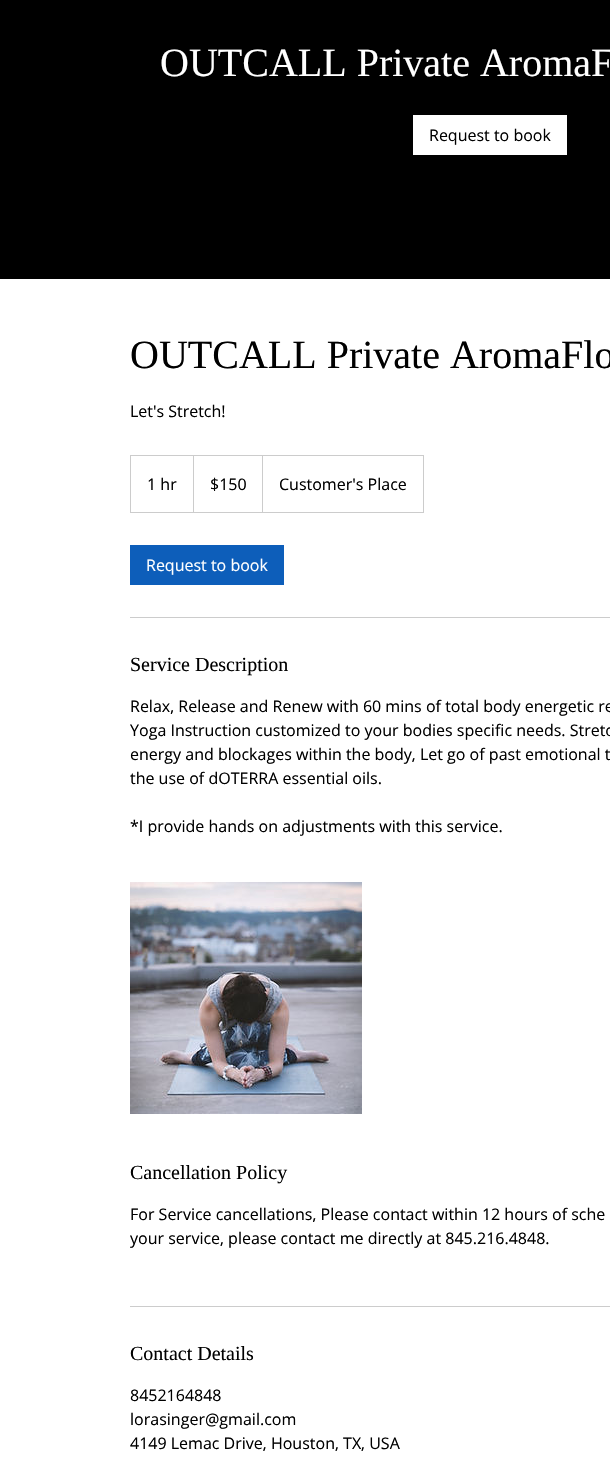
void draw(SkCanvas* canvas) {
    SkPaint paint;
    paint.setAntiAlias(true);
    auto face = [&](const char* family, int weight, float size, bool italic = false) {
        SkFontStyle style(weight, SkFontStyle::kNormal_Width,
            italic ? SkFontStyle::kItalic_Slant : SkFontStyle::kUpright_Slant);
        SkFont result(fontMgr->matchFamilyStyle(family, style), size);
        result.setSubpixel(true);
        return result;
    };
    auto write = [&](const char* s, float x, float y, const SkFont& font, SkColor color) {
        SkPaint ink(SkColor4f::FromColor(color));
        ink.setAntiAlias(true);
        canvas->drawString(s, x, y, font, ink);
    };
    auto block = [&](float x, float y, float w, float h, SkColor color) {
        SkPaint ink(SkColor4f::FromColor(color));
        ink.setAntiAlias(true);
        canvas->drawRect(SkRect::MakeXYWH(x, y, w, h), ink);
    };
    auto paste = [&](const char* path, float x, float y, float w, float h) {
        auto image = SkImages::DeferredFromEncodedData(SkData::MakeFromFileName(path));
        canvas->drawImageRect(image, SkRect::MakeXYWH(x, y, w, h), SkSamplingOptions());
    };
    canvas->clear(SK_ColorWHITE);
    block(0, 0, 610, 279, SK_ColorBLACK);
    auto kFont1 = face("Liberation Serif", 400, 40);
    write("OUTCALL Private AromaF", 160, 76, kFont1, SK_ColorWHITE);
    block(413, 115, 154, 40, SK_ColorWHITE);
    auto kFont2 = face("Open Sans", 400, 16);
    write("Request to book", 429, 141, kFont2, SK_ColorBLACK);
    write("OUTCALL Private AromaFlo", 130, 368, kFont1, SK_ColorBLACK);
    write("Let's Stretch!", 130, 417, kFont2, SK_ColorBLACK);
    paint.setStyle(SkPaint::kStroke_Style);
    paint.setStrokeWidth(1);
    paint.setColor(SkColorSetRGB(204, 204, 204));
    canvas->drawRect(SkRect::MakeXYWH(130.5f, 455.5f, 293, 57), paint);
    write("1 hr", 147, 490, kFont2, SK_ColorBLACK);
    paint.setStyle(SkPaint::kFill_Style);
    canvas->drawPath(SkPathBuilder().moveTo(193, 512).lineTo(193, 455).lineTo(194, 456).lineTo(194, 512).close().detach(), paint);
    write("$150", 210, 490, kFont2, SK_ColorBLACK);
    canvas->drawPath(SkPathBuilder().moveTo(262, 512).lineTo(262, 455).lineTo(263, 456).lineTo(263, 512).close().detach(), paint);
    write("Customer's Place", 279, 490, kFont2, SK_ColorBLACK);
    block(130, 545, 154, 40, SkColorSetRGB(13, 94, 186));
    write("Request to book", 146, 571, kFont2, SK_ColorWHITE);
    block(130, 617, 480, 1, SkColorSetRGB(204, 204, 204));
    auto kFont3 = face("Liberation Serif", 400, 20);
    write("Service Description", 130, 671, kFont3, SK_ColorBLACK);
    write("Relax, Release and Renew with 60 mins of total body energetic re", 130, 712, kFont2, SK_ColorBLACK);
    write("Yoga Instruction customized to your bodies specific needs. Stretc", 130, 736, kFont2, SK_ColorBLACK);
    write("energy and blockages within the body, Let go of past emotional t", 130, 760, kFont2, SK_ColorBLACK);
    write("the use of dOTERRA essential oils.", 130, 784, kFont2, SK_ColorBLACK);
    write("*I provide hands on adjustments with this service.", 130, 832, kFont2, SK_ColorBLACK);
    paste("pic1.png", 130, 882, 232, 232);
    write("Cancellation Policy", 130, 1179, kFont3, SK_ColorBLACK);
    write("For Service cancellations, Please contact within 12 hours of sche", 130, 1220, kFont2, SK_ColorBLACK);
    write("your service, please contact me directly at 845.216.4848.", 130, 1244, kFont2, SK_ColorBLACK);
    block(130, 1306, 480, 1, SkColorSetRGB(204, 204, 204));
    write("Contact Details", 130, 1360, kFont3, SK_ColorBLACK);
    write("8452164848", 130, 1401, kFont2, SK_ColorBLACK);
    write("lorasinger@gmail.com", 130, 1425, kFont2, SK_ColorBLACK);
    write("4149 Lemac Drive, Houston, TX, USA", 130, 1449, kFont2, SK_ColorBLACK);
}
